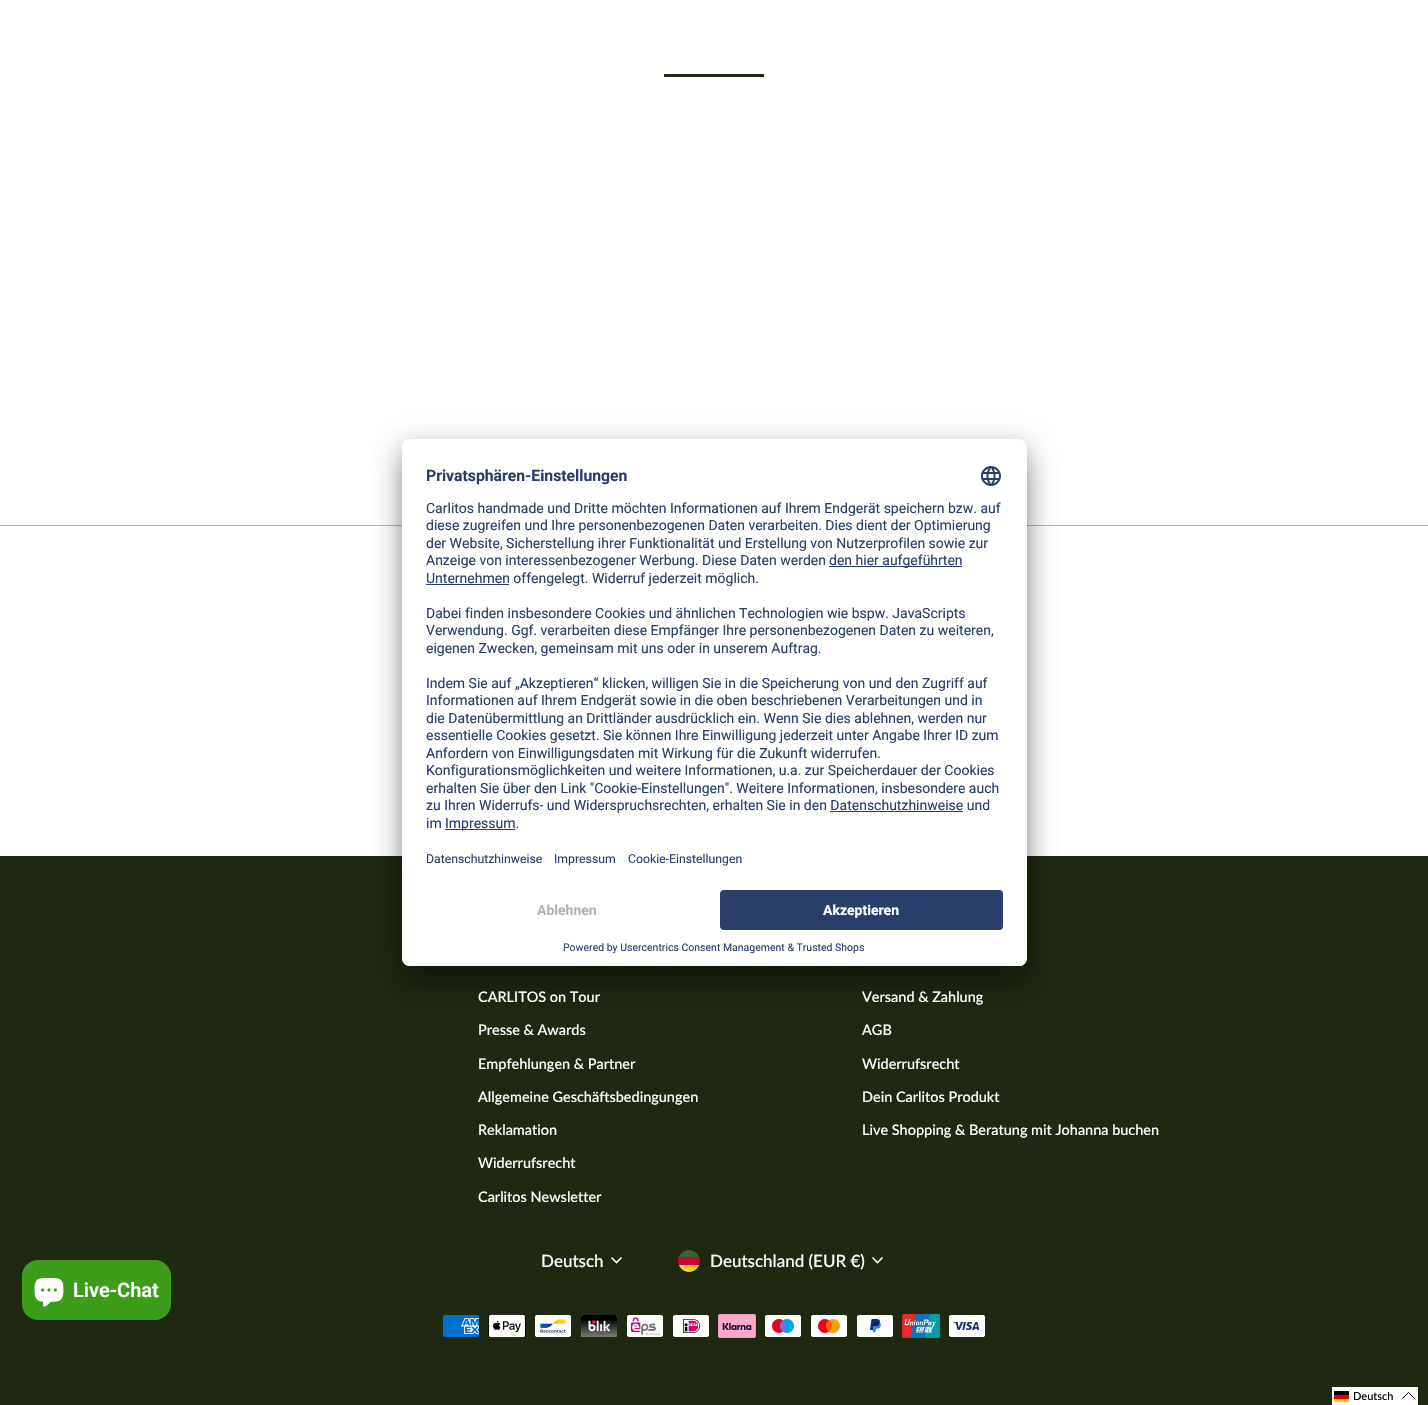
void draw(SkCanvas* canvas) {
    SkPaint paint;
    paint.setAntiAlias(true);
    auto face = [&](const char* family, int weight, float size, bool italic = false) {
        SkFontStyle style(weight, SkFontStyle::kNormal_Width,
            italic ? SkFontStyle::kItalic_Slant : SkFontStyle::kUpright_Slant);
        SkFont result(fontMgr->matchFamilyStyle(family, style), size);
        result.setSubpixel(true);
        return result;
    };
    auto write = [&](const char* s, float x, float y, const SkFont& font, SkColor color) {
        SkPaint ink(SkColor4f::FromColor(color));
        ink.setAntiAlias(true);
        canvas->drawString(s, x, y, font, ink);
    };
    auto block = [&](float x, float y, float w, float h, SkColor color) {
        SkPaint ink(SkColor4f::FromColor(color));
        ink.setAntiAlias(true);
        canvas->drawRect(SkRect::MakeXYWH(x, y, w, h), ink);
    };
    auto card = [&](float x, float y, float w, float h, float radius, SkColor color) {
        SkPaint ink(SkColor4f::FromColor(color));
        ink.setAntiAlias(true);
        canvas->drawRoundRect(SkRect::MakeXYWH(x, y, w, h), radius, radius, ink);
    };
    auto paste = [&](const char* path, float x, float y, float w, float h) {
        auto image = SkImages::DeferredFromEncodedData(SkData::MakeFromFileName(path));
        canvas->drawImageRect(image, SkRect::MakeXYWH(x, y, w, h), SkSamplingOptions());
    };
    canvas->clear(SK_ColorWHITE);
    block(0, 525, 1428, 1, SkColorSetRGB(179, 179, 179));
    block(0, 856, 1428, 549, SkColorSetRGB(31, 41, 17));
    paint.setColor(SkColorSetARGB(77, 0, 0, 0));
    paint.setMaskFilter(SkMaskFilter::MakeBlur(kNormal_SkBlurStyle, 14));
    canvas->drawRoundRect(SkRect::MakeXYWH(402, 459, 625, 527), 8, 8, paint);
    paint.setMaskFilter(nullptr);
    paint.setColor(SkColorSetARGB(56, 0, 0, 0));
    paint.setMaskFilter(SkMaskFilter::MakeBlur(kNormal_SkBlurStyle, 13));
    canvas->drawRoundRect(SkRect::MakeXYWH(402, 444, 625, 527), 8, 8, paint);
    paint.setMaskFilter(nullptr);
    card(402, 439, 625, 527, 8, SK_ColorWHITE);
    auto kFont1 = face("Roboto", 700, 15.75f);
    write("Privatsphären-Einstellungen", 426, 481, kFont1, SkColorSetRGB(41, 62, 108));
    paste("pic1.png", 981, 466, 20, 20);
    auto kFont2 = face("Roboto", 400, 14);
    write("Carlitos handmade und Dritte möchten Informationen auf Ihrem Endgerät speichern bzw. auf", 426, 513, kFont2, SkColorSetRGB(41, 62, 108));
    write("diese zugreifen und Ihre personenbezogenen Daten verarbeiten. Dies dient der Optimierung", 426, 530, kFont2, SkColorSetRGB(41, 62, 108));
    write("der Website, Sicherstellung ihrer Funktionalität und Erstellung von Nutzerprofilen sowie zur", 426, 548, kFont2, SkColorSetRGB(41, 62, 108));
    write("Anzeige von interessenbezogener Werbung. Diese Daten werden", 426, 565, kFont2, SkColorSetRGB(41, 62, 108));
    block(829, 566, 133, 1, SkColorSetRGB(41, 62, 108));
    write("den hier aufgeführten", 829, 565, kFont2, SkColorSetRGB(41, 62, 108));
    block(426, 584, 83, 1, SkColorSetRGB(41, 62, 108));
    write("Unternehmen offengelegt. Widerruf jederzeit möglich.", 426, 583, kFont2, SkColorSetRGB(41, 62, 108));
    write("Dabei finden insbesondere Cookies und ähnlichen Technologien wie bspw. JavaScripts", 426, 618, kFont2, SkColorSetRGB(41, 62, 108));
    write("Verwendung. Ggf. verarbeiten diese Empfänger Ihre personenbezogenen Daten zu weiteren,", 426, 635, kFont2, SkColorSetRGB(41, 62, 108));
    write("eigenen Zwecken, gemeinsam mit uns oder in unserem Auftrag.", 426, 653, kFont2, SkColorSetRGB(41, 62, 108));
    write("Indem Sie auf „Akzeptieren“ klicken, willigen Sie in die Speicherung von und den Zugriff auf", 426, 688, kFont2, SkColorSetRGB(41, 62, 108));
    write("Informationen auf Ihrem Endgerät sowie in die oben beschriebenen Verarbeitungen und in", 426, 705, kFont2, SkColorSetRGB(41, 62, 108));
    write("die Datenübermittlung an Drittländer ausdrücklich ein. Wenn Sie dies ablehnen, werden nur", 426, 723, kFont2, SkColorSetRGB(41, 62, 108));
    write("essentielle Cookies gesetzt. Sie können Ihre Einwilligung jederzeit unter Angabe Ihrer ID zum", 426, 740, kFont2, SkColorSetRGB(41, 62, 108));
    write("Anfordern von Einwilligungsdaten mit Wirkung für die Zukunft widerrufen.", 426, 758, kFont2, SkColorSetRGB(41, 62, 108));
    write("Konfigurationsmöglichkeiten und weitere Informationen, u.a. zur Speicherdauer der Cookies", 426, 775, kFont2, SkColorSetRGB(41, 62, 108));
    write("erhalten Sie über den Link \"Cookie-Einstellungen\". Weitere Informationen, insbesondere auch", 426, 793, kFont2, SkColorSetRGB(41, 62, 108));
    write("zu Ihren Widerrufs- und Widerspruchsrechten, erhalten Sie in den Datenschutzhinweise und", 426, 810, kFont2, SkColorSetRGB(41, 62, 108));
    block(830, 811, 133, 1, SkColorSetRGB(41, 62, 108));
    write("im", 426, 828, kFont2, SkColorSetRGB(41, 62, 108));
    block(445, 829, 70, 1, SkColorSetRGB(41, 62, 108));
    write("Impressum.", 445, 828, kFont2, SkColorSetRGB(41, 62, 108));
    auto kFont3 = face("Roboto", 400, 12.25f);
    write("Datenschutzhinweise", 426, 863, kFont3, SkColorSetRGB(41, 62, 108));
    write("Impressum", 554, 863, kFont3, SkColorSetRGB(41, 62, 108));
    write("Cookie-Einstellungen", 628, 863, kFont3, SkColorSetRGB(41, 62, 108));
    paint.setColor(SK_ColorWHITE);
    canvas->drawPath(SkPathBuilder().moveTo(402, 882).lineTo(1027, 882).lineTo(1027, 958).cubicTo(1027, 962.5f, 1023.5f, 966, 1019, 966).lineTo(410, 966).cubicTo(405.5f, 966, 402, 962.5f, 402, 958).close().detach(), paint);
    auto kFont4 = face("Roboto", 700, 14);
    write("Ablehnen", 537, 915, kFont4, SkColorSetRGB(179, 179, 179));
    card(720, 890, 283, 40, 4, SkColorSetRGB(41, 62, 108));
    write("Akzeptieren", 823, 915, kFont4, SK_ColorWHITE);
    auto kFont5 = face("Roboto", 400, 10.5f);
    write("Powered by Usercentrics Consent Management & Trusted Shops", 563, 951, kFont5, SkColorSetRGB(41, 62, 108));
    block(664, 74, 100, 3, SkColorSetRGB(31, 41, 17));
    auto kFont6 = face("Lato", 500, 14.45f);
    write("CARLITOS on Tour", 478, 1002, kFont6, SK_ColorWHITE);
    write("Presse & Awards", 478, 1035, kFont6, SK_ColorWHITE);
    write("Empfehlungen & Partner", 478, 1069, kFont6, SK_ColorWHITE);
    write("Allgemeine Geschäftsbedingungen", 478, 1102, kFont6, SK_ColorWHITE);
    write("Reklamation", 478, 1135, kFont6, SK_ColorWHITE);
    write("Widerrufsrecht", 478, 1168, kFont6, SK_ColorWHITE);
    write("Carlitos Newsletter", 478, 1202, kFont6, SK_ColorWHITE);
    write("Versand & Zahlung", 862, 1002, kFont6, SK_ColorWHITE);
    write("AGB", 862, 1035, kFont6, SK_ColorWHITE);
    write("Widerrufsrecht", 862, 1069, kFont6, SK_ColorWHITE);
    write("Dein Carlitos Produkt", 862, 1102, kFont6, SK_ColorWHITE);
    write("Live Shopping & Beratung mit Johanna buchen", 862, 1135, kFont6, SK_ColorWHITE);
    auto kFont7 = face("Lato", 500, 17);
    write("Deutsch", 541, 1267, kFont7, SK_ColorWHITE);
    paint.setStyle(SkPaint::kStroke_Style);
    paint.setStrokeWidth(1.6f);
    canvas->drawPath(SkPathBuilder().moveTo(611.5f, 1257.5f).lineTo(616.5f, 1262.5f).lineTo(621.5f, 1257.5f).detach(), paint);
    paste("pic2.png", 678, 1250, 22, 22);
    write("Deutschland (EUR €)", 710, 1267, kFont7, SK_ColorWHITE);
    canvas->drawPath(SkPathBuilder().moveTo(872.5f, 1257.5f).lineTo(877.5f, 1262.5f).lineTo(882.5f, 1257.5f).detach(), paint);
    paste("pic3.png", 443, 1315, 36, 22);
    paste("pic4.png", 488, 1314, 38, 24);
    paste("pic5.png", 535, 1315, 36, 22);
    paste("pic6.png", 581, 1315, 36, 22);
    paste("pic7.png", 627, 1315, 36, 22);
    paste("pic8.png", 673, 1315, 36, 22);
    paste("pic9.png", 718, 1314, 38, 24);
    paste("pic10.png", 765, 1315, 36, 22);
    paste("pic11.png", 811, 1315, 36, 22);
    paste("pic12.png", 857, 1315, 36, 22);
    paste("pic13.png", 902, 1314, 38, 24);
    paste("pic14.png", 949, 1315, 36, 22);
    card(22, 1260, 149, 60, 16, SkColorSetRGB(60, 157, 27));
    paste("pic15.png", 34, 1278, 30, 29);
    auto kFont8 = face("Roboto", 600, 20);
    write("Live-Chat", 73, 1297, kFont8, SK_ColorWHITE);
    block(1332, 1387, 86, 18, SK_ColorWHITE);
    block(1334, 1399, 15, 3, SkColorSetRGB(255, 206, 0));
    block(1334, 1391, 15, 4, SK_ColorBLACK);
    block(1334, 1395, 15, 4, SkColorSetRGB(221, 0, 0));
    auto kFont9 = face("Lato", 500, 11);
    write("Deutsch", 1353, 1400, kFont9, SK_ColorBLACK);
    paint.setStrokeWidth(1);
    paint.setColor(SK_ColorBLACK);
    canvas->drawPath(SkPathBuilder().moveTo(1414.5f, 1398.5f).lineTo(1408.5f, 1392.5f).lineTo(1402.5f, 1398.5f).detach(), paint);
}
